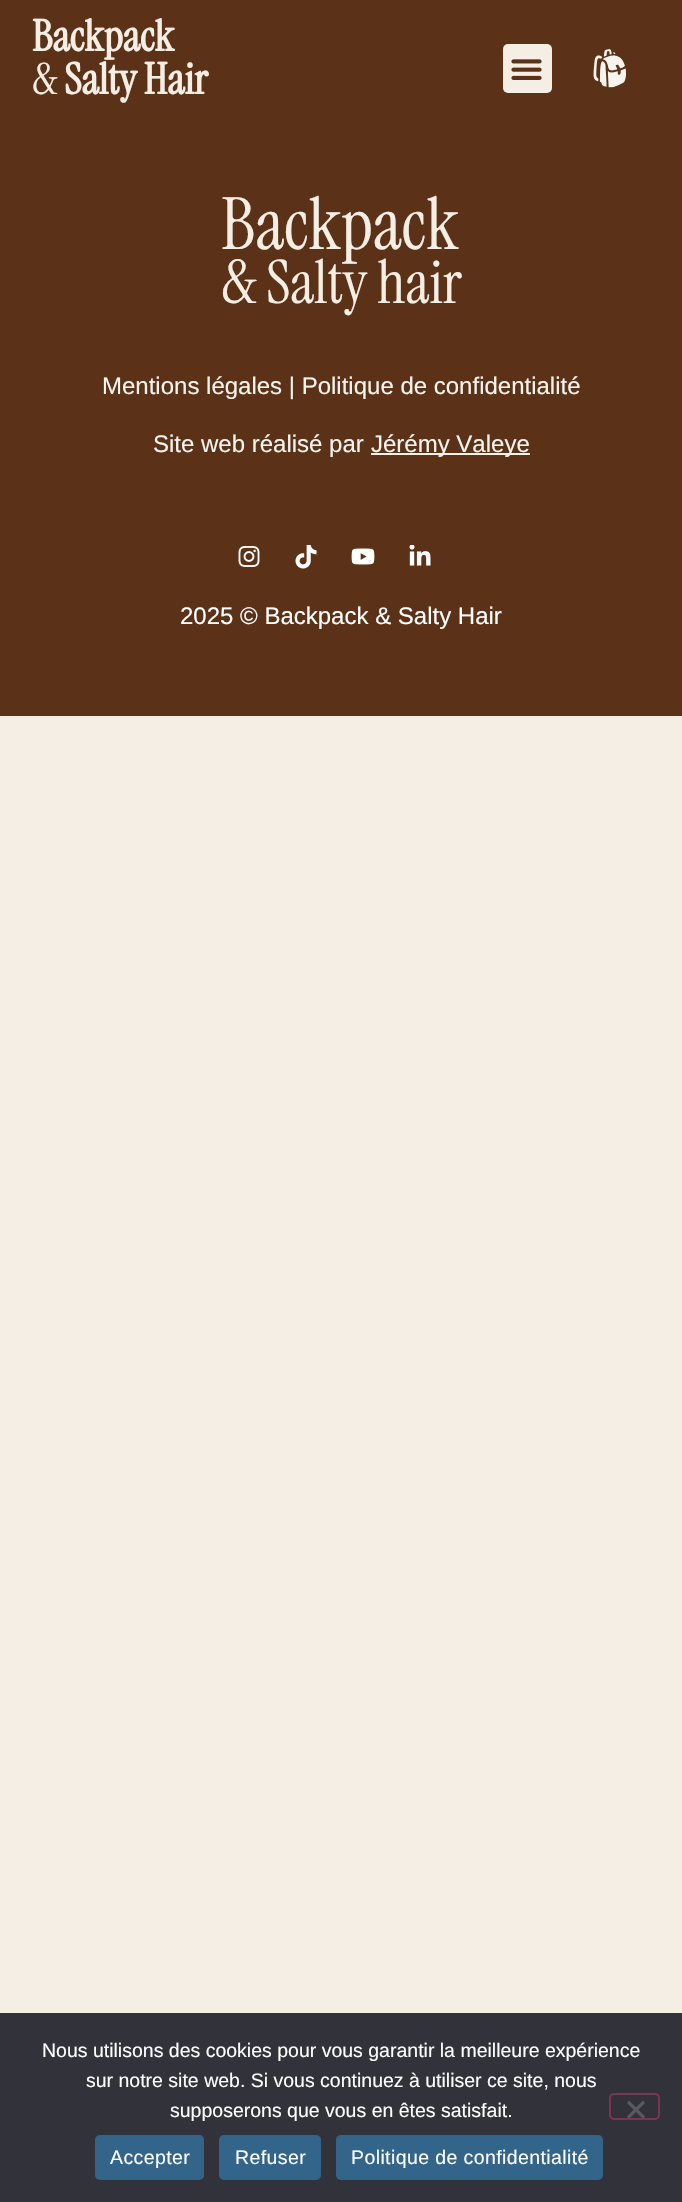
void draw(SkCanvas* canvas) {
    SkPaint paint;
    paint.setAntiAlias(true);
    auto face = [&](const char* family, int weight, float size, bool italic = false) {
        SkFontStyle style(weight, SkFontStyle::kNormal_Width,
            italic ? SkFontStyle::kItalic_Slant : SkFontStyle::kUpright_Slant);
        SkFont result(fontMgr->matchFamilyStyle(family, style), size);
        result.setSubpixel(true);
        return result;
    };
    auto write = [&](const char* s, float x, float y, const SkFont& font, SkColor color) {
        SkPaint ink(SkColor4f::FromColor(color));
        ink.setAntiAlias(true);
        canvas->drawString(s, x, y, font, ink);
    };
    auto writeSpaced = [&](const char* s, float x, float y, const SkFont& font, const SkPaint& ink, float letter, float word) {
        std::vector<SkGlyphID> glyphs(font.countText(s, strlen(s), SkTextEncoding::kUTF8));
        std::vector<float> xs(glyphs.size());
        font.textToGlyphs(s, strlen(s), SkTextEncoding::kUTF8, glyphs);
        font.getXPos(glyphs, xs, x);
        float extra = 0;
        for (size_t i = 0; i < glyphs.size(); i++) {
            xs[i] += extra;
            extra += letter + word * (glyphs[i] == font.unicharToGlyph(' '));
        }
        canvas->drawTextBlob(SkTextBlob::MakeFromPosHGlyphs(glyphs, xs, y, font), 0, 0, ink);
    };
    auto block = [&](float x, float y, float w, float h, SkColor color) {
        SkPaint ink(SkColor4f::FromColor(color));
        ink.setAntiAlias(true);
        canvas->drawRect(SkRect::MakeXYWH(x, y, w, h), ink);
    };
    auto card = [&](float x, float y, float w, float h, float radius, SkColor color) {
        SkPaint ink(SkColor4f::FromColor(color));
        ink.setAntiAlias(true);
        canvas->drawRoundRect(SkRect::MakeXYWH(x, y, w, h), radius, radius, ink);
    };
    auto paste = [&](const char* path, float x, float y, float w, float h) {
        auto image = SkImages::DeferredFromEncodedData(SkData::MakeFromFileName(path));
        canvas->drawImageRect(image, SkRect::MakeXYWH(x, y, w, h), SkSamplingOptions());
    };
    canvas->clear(SkColorSetRGB(244, 238, 229));
    block(0, 0, 682, 716, SkColorSetRGB(91, 50, 24));
    auto kFont1 = face("Instrument Serif", 700, 43);
    write("Backpack", 32, 51, kFont1, SkColorSetRGB(244, 238, 229));
    auto kFont2 = face("Instrument Serif", 400, 43);
    write("&", 32, 94, kFont2, SkColorSetRGB(244, 238, 229));
    write("Salty Hair", 64, 94, kFont1, SkColorSetRGB(244, 238, 229));
    card(503, 44, 49, 49, 5, SkColorSetRGB(244, 238, 229));
    paste("pic1.png", 511, 59, 31, 21);
    paste("pic2.png", 593, 49, 33, 39);
    auto kFont3 = face("Instrument Serif", 400, 72);
    write("Backpack", 221, 249, kFont3, SkColorSetRGB(244, 238, 229));
    auto kFont4 = face("Instrument Serif", 400, 60);
    write("& Salty hair", 221, 303, kFont4, SkColorSetRGB(244, 238, 229));
    auto kFont5 = face("Liberation Sans", 400, 24);
    write("Mentions légales | Politique de confidentialité", 102, 394, kFont5, SkColorSetRGB(246, 244, 239));
    write("Site web réalisé par", 153, 452, kFont5, SkColorSetRGB(246, 244, 239));
    block(371, 453, 159, 2, SkColorSetRGB(246, 244, 239));
    write("Jérémy Valeye", 371, 452, kFont5, SkColorSetRGB(246, 244, 239));
    paste("pic3.png", 238, 546, 22, 21);
    paste("pic4.png", 295, 545, 22, 24);
    paste("pic5.png", 351, 548, 24, 17);
    paste("pic6.png", 409, 545, 22, 21);
    write("2025 © Backpack & Salty Hair", 180, 624, kFont5, SK_ColorWHITE);
    block(0, 2013, 682, 189, SkColorSetRGB(50, 50, 58));
    auto kFont6 = face("Liberation Sans", 400, 19.5f);
    write("Nous utilisons des cookies pour vous garantir la meilleure expérience", 42, 2057, kFont6, SK_ColorWHITE);
    write("sur notre site web. Si vous continuez à utiliser ce site, nous", 86, 2087, kFont6, SK_ColorWHITE);
    write("supposerons que vous en êtes satisfait.", 170, 2117, kFont6, SK_ColorWHITE);
    paint.setStyle(SkPaint::kStroke_Style);
    paint.setStrokeWidth(2);
    paint.setColor(SkColorSetRGB(127, 51, 80));
    canvas->drawRoundRect(SkRect::MakeXYWH(610, 2094, 49, 25), 4, 4, paint);
    paint.setStyle(SkPaint::kFill_Style);
    paint.setColor(SkColorSetRGB(89, 89, 93));
    canvas->drawPath(SkPathBuilder().moveTo(643, 2100.5f).lineTo(645, 2103).lineTo(629, 2119).lineTo(627, 2116.5f).close().detach(), paint);
    canvas->drawPath(SkPathBuilder().moveTo(627, 2103).lineTo(629, 2100.5f).lineTo(645, 2116.5f).lineTo(643, 2119).close().detach(), paint);
    card(95, 2135, 109, 45, 5, SkColorSetRGB(51, 101, 138));
    paint.setColor(SK_ColorWHITE);
    writeSpaced("Accepter", 110, 2164, kFont6, paint, 0.4f, 0);
    card(219, 2135, 102, 45, 5, SkColorSetRGB(51, 101, 138));
    writeSpaced("Refuser", 235, 2164, kFont6, paint, 0.4f, 0);
    card(336, 2135, 267, 45, 5, SkColorSetRGB(51, 101, 138));
    writeSpaced("Politique de confidentialité", 351, 2164, kFont6, paint, 0.4f, 0);
}
